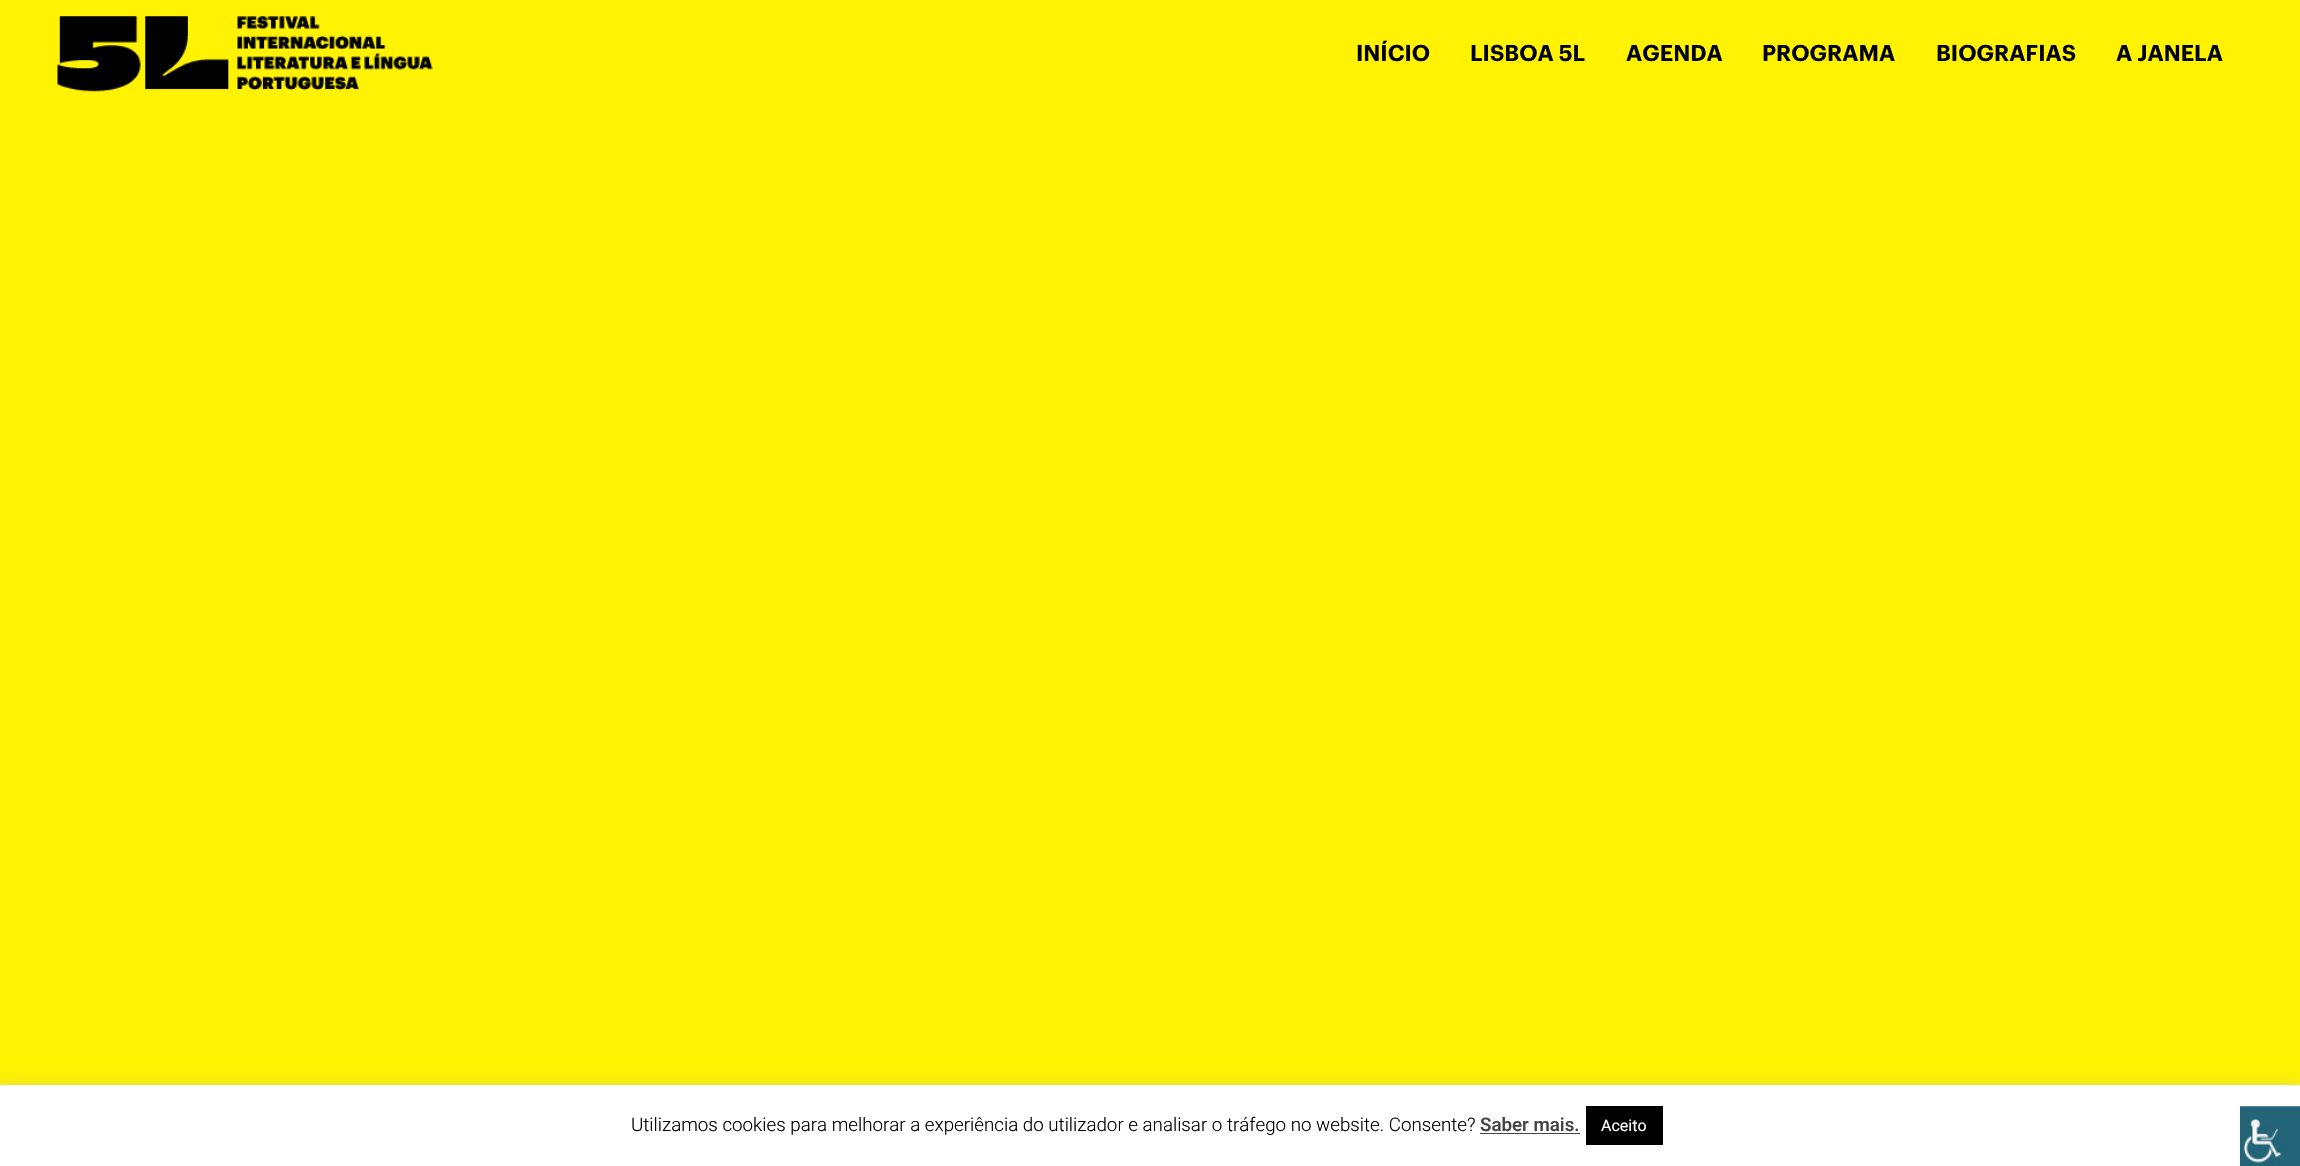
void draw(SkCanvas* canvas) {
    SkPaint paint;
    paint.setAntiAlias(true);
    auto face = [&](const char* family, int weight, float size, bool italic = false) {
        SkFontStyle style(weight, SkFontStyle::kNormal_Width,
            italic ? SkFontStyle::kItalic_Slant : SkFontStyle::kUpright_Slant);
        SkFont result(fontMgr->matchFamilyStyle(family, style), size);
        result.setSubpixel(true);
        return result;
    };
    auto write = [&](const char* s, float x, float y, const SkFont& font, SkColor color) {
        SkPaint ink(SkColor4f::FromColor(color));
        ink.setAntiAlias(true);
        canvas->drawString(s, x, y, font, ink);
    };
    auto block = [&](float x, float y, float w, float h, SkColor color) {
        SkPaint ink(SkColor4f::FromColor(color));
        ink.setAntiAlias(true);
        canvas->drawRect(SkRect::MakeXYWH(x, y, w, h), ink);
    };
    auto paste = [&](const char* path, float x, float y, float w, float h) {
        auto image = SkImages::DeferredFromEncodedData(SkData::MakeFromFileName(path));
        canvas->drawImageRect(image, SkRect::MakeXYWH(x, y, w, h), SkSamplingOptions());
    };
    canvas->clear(SkColorSetRGB(255, 242, 3));
    paste("pic1.png", 57, 16, 376, 76);
    auto kFont1 = face("Graphik", 600, 22.5f);
    write("INÍCIO", 1356, 61, kFont1, SK_ColorBLACK);
    write("LISBOA 5L", 1470, 61, kFont1, SK_ColorBLACK);
    write("AGENDA", 1626, 61, kFont1, SK_ColorBLACK);
    write("PROGRAMA", 1762, 61, kFont1, SK_ColorBLACK);
    write("BIOGRAFIAS", 1936, 61, kFont1, SK_ColorBLACK);
    write("A JANELA", 2116, 61, kFont1, SK_ColorBLACK);
    paint.setColor(SkColorSetARGB(77, 172, 171, 171));
    paint.setMaskFilter(SkMaskFilter::MakeBlur(kNormal_SkBlurStyle, 6));
    canvas->drawRect(SkRect::MakeXYWH(0, 1084, 2300, 81), paint);
    paint.setMaskFilter(nullptr);
    block(0, 1085, 2300, 81, SK_ColorWHITE);
    auto kFont2 = face("Roboto", 300, 18.75f);
    write("Utilizamos cookies para melhorar a experiência do utilizador e analisar o tráfego no website. Consente?", 631, 1131, kFont2, SK_ColorBLACK);
    auto kFont3 = face("Roboto", 500, 18.75f);
    write("Saber mais.", 1480, 1131, kFont3, SkColorSetRGB(68, 68, 68));
    block(1480, 1133, 100, 1, SkColorSetRGB(68, 68, 68));
    block(1586, 1106, 77, 39, SK_ColorBLACK);
    auto kFont4 = face("Roboto", 400, 16);
    write("Aceito", 1601, 1131, kFont4, SK_ColorWHITE);
    paste("pic2.png", 2240, 1106, 60, 60);
}
